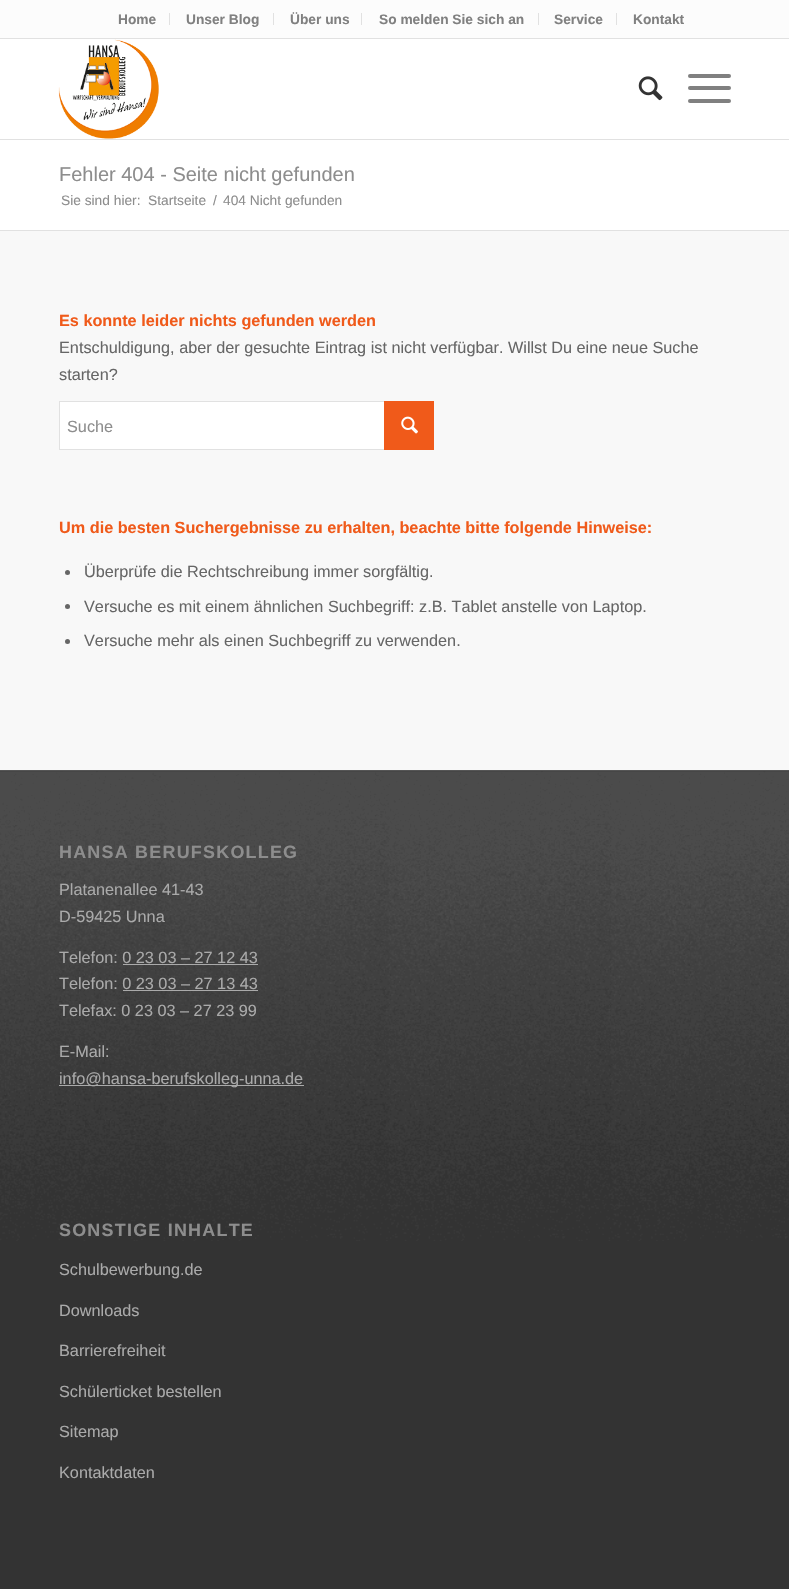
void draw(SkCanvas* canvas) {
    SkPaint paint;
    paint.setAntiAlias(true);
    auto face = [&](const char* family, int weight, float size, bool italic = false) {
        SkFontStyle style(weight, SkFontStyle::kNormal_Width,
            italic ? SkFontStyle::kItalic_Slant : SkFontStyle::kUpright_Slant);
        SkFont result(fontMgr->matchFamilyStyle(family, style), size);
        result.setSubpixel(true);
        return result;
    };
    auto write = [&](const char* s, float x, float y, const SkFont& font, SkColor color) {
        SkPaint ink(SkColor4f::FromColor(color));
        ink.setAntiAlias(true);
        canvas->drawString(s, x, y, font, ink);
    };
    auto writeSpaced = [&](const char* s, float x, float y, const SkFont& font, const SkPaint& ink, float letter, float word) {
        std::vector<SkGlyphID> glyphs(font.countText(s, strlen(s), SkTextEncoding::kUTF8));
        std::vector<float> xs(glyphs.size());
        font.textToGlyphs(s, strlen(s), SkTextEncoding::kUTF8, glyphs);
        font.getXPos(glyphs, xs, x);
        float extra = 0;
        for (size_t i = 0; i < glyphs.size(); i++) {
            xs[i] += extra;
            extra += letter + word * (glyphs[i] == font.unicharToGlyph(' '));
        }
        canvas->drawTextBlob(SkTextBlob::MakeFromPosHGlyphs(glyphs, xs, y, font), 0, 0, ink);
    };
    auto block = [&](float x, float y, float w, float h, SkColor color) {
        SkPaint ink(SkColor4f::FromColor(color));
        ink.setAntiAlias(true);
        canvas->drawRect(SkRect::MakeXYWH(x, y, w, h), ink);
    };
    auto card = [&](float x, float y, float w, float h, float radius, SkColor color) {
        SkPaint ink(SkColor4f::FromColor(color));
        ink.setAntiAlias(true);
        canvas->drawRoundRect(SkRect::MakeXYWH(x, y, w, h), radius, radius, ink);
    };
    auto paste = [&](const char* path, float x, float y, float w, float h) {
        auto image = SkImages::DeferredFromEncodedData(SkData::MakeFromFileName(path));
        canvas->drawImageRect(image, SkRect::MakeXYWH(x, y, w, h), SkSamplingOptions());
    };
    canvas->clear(SK_ColorWHITE);
    block(0, 0, 789, 38, SkColorSetRGB(252, 252, 252));
    block(0, 38, 789, 1, SkColorSetRGB(225, 225, 225));
    block(169, 13, 1, 12, SkColorSetRGB(225, 225, 225));
    auto kFont1 = face("Liberation Sans", 700, 13.75f);
    write("Home", 118, 24, kFont1, SkColorSetRGB(128, 128, 128));
    block(273, 13, 1, 12, SkColorSetRGB(225, 225, 225));
    write("Unser Blog", 186, 24, kFont1, SkColorSetRGB(128, 128, 128));
    block(361, 13, 1, 12, SkColorSetRGB(225, 225, 225));
    write("Über uns", 290, 24, kFont1, SkColorSetRGB(128, 128, 128));
    block(538, 13, 1, 12, SkColorSetRGB(225, 225, 225));
    write("So melden Sie sich an", 379, 24, kFont1, SkColorSetRGB(128, 128, 128));
    block(616, 13, 1, 12, SkColorSetRGB(225, 225, 225));
    write("Service", 554, 24, kFont1, SkColorSetRGB(128, 128, 128));
    write("Kontakt", 633, 24, kFont1, SkColorSetRGB(128, 128, 128));
    block(0, 139, 789, 1, SkColorSetRGB(225, 225, 225));
    paste("pic1.png", 58, 39, 101, 100);
    paste("pic2.png", 638, 76, 25, 25);
    card(688, 86, 43, 4, 2, SkColorSetRGB(128, 128, 128));
    card(688, 74, 43, 4, 2, SkColorSetRGB(128, 128, 128));
    card(688, 99, 43, 4, 2, SkColorSetRGB(128, 128, 128));
    auto kFont2 = face("Liberation Sans", 400, 20);
    write("Fehler 404 - Seite nicht gefunden", 59, 181, kFont2, SkColorSetRGB(141, 141, 141));
    auto kFont3 = face("Liberation Sans", 400, 13.75f);
    write("Sie sind hier:", 61, 205, kFont3, SkColorSetRGB(141, 141, 141));
    write("Startseite", 148, 205, kFont3, SkColorSetRGB(141, 141, 141));
    write("/", 213, 205, kFont3, SkColorSetRGB(141, 141, 141));
    write("404 Nicht gefunden", 223, 205, kFont3, SkColorSetRGB(141, 141, 141));
    block(0, 231, 789, 539, SkColorSetRGB(248, 248, 248));
    block(0, 230, 789, 1, SkColorSetRGB(225, 225, 225));
    auto kFont4 = face("Liberation Sans", 700, 16.25f);
    write("Es konnte leider nichts gefunden werden", 59, 326, kFont4, SkColorSetRGB(240, 90, 26));
    auto kFont5 = face("Liberation Sans", 400, 16.25f);
    write("Entschuldigung, aber der gesuchte Eintrag ist nicht verfügbar. Willst Du eine neue Suche", 59, 353, kFont5, SkColorSetRGB(102, 102, 102));
    write("starten?", 59, 380, kFont5, SkColorSetRGB(102, 102, 102));
    block(60, 402, 324, 47, SK_ColorWHITE);
    paint.setStyle(SkPaint::kStroke_Style);
    paint.setStrokeWidth(1);
    paint.setColor(SkColorSetRGB(225, 225, 225));
    canvas->drawRect(SkRect::MakeXYWH(59.5f, 401.5f, 374, 48), paint);
    write("Suche", 67, 432, kFont5, SkColorSetRGB(141, 141, 141));
    block(384, 401, 50, 49, SkColorSetRGB(240, 90, 26));
    paste("pic3.png", 401, 416, 17, 18);
    write("Um die besten Suchergebnisse zu erhalten, beachte bitte folgende Hinweise:", 59, 533, kFont4, SkColorSetRGB(240, 90, 26));
    paint.setStyle(SkPaint::kFill_Style);
    paint.setColor(SkColorSetRGB(102, 102, 102));
    canvas->drawCircle(67.5f, 572.5f, 2.5f, paint);
    write("Überprüfe die Rechtschreibung immer sorgfältig.", 84, 577, kFont5, SkColorSetRGB(102, 102, 102));
    canvas->drawCircle(67.5f, 606.5f, 2.5f, paint);
    write("Versuche es mit einem ähnlichen Suchbegriff: z.B. Tablet anstelle von Laptop.", 84, 612, kFont5, SkColorSetRGB(102, 102, 102));
    canvas->drawCircle(67.5f, 641.5f, 2.5f, paint);
    write("Versuche mehr als einen Suchbegriff zu verwenden.", 84, 646, kFont5, SkColorSetRGB(102, 102, 102));
    block(0, 771, 789, 818, SkColorSetRGB(51, 51, 51));
    paste("pic4.png", 0, 771, 789, 470);
    block(0, 770, 789, 1, SkColorSetRGB(85, 85, 85));
    auto kFont6 = face("Liberation Sans", 700, 17.9f);
    paint.setColor(SkColorSetRGB(141, 141, 141));
    writeSpaced("HANSA BERUFSKOLLEG", 59, 858, kFont6, paint, 1.25f, 0);
    write("Platanenallee 41-43", 59, 895, kFont5, SkColorSetRGB(170, 170, 170));
    write("D-59425 Unna", 59, 922, kFont5, SkColorSetRGB(170, 170, 170));
    write("Telefon: 0 23 03 – 27 12 43", 59, 963, kFont5, SkColorSetRGB(170, 170, 170));
    block(123, 964, 135, 1, SkColorSetRGB(170, 170, 170));
    write("Telefon: 0 23 03 – 27 13 43", 59, 989, kFont5, SkColorSetRGB(170, 170, 170));
    block(123, 990, 135, 1, SkColorSetRGB(170, 170, 170));
    write("Telefax: 0 23 03 – 27 23 99", 59, 1016, kFont5, SkColorSetRGB(170, 170, 170));
    write("E-Mail:", 59, 1057, kFont5, SkColorSetRGB(170, 170, 170));
    block(59, 1085, 245, 1, SkColorSetRGB(170, 170, 170));
    write("info@hansa-berufskolleg-unna.de", 59, 1084, kFont5, SkColorSetRGB(170, 170, 170));
    writeSpaced("SONSTIGE INHALTE", 59, 1236, kFont6, paint, 1.25f, 0);
    write("Schulbewerbung.de", 59, 1275, kFont5, SkColorSetRGB(170, 170, 170));
    write("Downloads", 59, 1316, kFont5, SkColorSetRGB(170, 170, 170));
    write("Barrierefreiheit", 59, 1356, kFont5, SkColorSetRGB(170, 170, 170));
    write("Schülerticket bestellen", 59, 1397, kFont5, SkColorSetRGB(170, 170, 170));
    write("Sitemap", 59, 1437, kFont5, SkColorSetRGB(170, 170, 170));
    write("Kontaktdaten", 59, 1478, kFont5, SkColorSetRGB(170, 170, 170));
}
